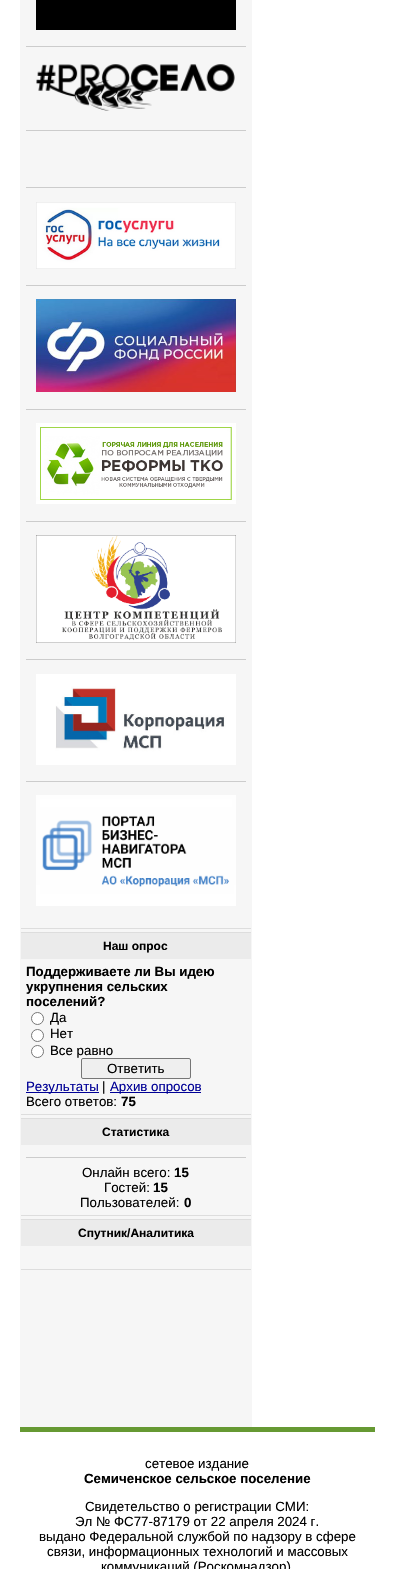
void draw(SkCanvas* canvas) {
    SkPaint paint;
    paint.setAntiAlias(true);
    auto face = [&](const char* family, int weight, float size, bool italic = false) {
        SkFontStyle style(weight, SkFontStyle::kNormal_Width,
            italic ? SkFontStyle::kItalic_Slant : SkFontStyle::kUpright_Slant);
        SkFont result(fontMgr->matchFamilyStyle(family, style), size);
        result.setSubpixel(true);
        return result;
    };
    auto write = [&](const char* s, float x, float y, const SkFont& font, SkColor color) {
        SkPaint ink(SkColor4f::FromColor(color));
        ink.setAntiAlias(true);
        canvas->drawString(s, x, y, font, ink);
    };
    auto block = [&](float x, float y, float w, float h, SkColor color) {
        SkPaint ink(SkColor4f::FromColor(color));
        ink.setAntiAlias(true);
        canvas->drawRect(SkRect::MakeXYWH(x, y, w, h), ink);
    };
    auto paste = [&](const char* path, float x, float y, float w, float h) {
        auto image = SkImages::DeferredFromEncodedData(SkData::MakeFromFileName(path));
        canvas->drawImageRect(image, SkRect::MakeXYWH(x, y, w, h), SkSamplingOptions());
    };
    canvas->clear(SK_ColorWHITE);
    block(20, 0, 232, 1427, SkColorSetRGB(246, 246, 246));
    block(21, 928, 230, 1, SkColorSetRGB(221, 221, 221));
    block(36, 0, 200, 30, SK_ColorBLACK);
    block(26, 46, 220, 1, SkColorSetRGB(204, 204, 204));
    paste("pic1.png", 36, 64, 199, 47);
    block(26, 130, 220, 1, SkColorSetRGB(204, 204, 204));
    block(26, 187, 220, 1, SkColorSetRGB(204, 204, 204));
    paste("pic2.png", 36, 202, 200, 67);
    block(26, 285, 220, 1, SkColorSetRGB(204, 204, 204));
    paste("pic3.png", 36, 299, 200, 93);
    block(26, 409, 220, 1, SkColorSetRGB(204, 204, 204));
    paste("pic4.png", 36, 423, 200, 81);
    block(26, 521, 220, 1, SkColorSetRGB(204, 204, 204));
    paste("pic5.png", 36, 535, 200, 108);
    block(26, 659, 220, 1, SkColorSetRGB(204, 204, 204));
    paste("pic6.png", 36, 674, 200, 91);
    block(26, 781, 220, 1, SkColorSetRGB(204, 204, 204));
    paste("pic7.png", 36, 795, 200, 111);
    block(21, 932, 230, 1, SkColorSetRGB(221, 221, 221));
    block(21, 1114, 230, 1, SkColorSetRGB(221, 221, 221));
    block(21, 933, 230, 26, SkColorSetRGB(235, 235, 235));
    auto kFont1 = face("Liberation Sans", 700, 12);
    write("Наш опрос", 103, 950, kFont1, SK_ColorBLACK);
    auto kFont2 = face("Liberation Sans", 700, 13.3f);
    write("Поддерживаете ли Вы идею", 26, 976, kFont2, SK_ColorBLACK);
    write("укрупнения сельских", 26, 991, kFont2, SK_ColorBLACK);
    write("поселений?", 26, 1006, kFont2, SK_ColorBLACK);
    paint.setColor(SK_ColorWHITE);
    canvas->drawCircle(37.5f, 1018.5f, 6, paint);
    paint.setStyle(SkPaint::kStroke_Style);
    paint.setStrokeWidth(1);
    paint.setColor(SkColorSetRGB(118, 118, 118));
    canvas->drawCircle(37.5f, 1018.5f, 6, paint);
    auto kFont3 = face("Liberation Sans", 400, 13.3f);
    write("Да", 50, 1022, kFont3, SK_ColorBLACK);
    paint.setStyle(SkPaint::kFill_Style);
    paint.setColor(SK_ColorWHITE);
    canvas->drawCircle(37.5f, 1035.5f, 6, paint);
    paint.setStyle(SkPaint::kStroke_Style);
    paint.setColor(SkColorSetRGB(118, 118, 118));
    canvas->drawCircle(37.5f, 1035.5f, 6, paint);
    write("Нет", 50, 1038, kFont3, SK_ColorBLACK);
    paint.setStyle(SkPaint::kFill_Style);
    paint.setColor(SK_ColorWHITE);
    canvas->drawCircle(37.5f, 1051.5f, 6, paint);
    paint.setStyle(SkPaint::kStroke_Style);
    paint.setColor(SkColorSetRGB(118, 118, 118));
    canvas->drawCircle(37.5f, 1051.5f, 6, paint);
    write("Все равно", 50, 1055, kFont3, SK_ColorBLACK);
    paint.setStyle(SkPaint::kFill_Style);
    paint.setColor(SkColorSetRGB(239, 239, 239));
    canvas->drawRoundRect(SkRect::MakeXYWH(81.5f, 1058.5f, 109, 20), 1.5f, 1.5f, paint);
    paint.setStyle(SkPaint::kStroke_Style);
    paint.setColor(SkColorSetRGB(118, 118, 118));
    canvas->drawRoundRect(SkRect::MakeXYWH(81.5f, 1058.5f, 109, 20), 1.5f, 1.5f, paint);
    write("Ответить", 107, 1073, kFont3, SK_ColorBLACK);
    block(26, 1092, 73, 1, SkColorSetRGB(0, 0, 150));
    write("Результаты", 26, 1091, kFont3, SkColorSetRGB(0, 0, 150));
    write("|", 102, 1091, kFont3, SK_ColorBLACK);
    block(110, 1092, 91, 1, SkColorSetRGB(0, 0, 150));
    write("Архив опросов", 110, 1091, kFont3, SkColorSetRGB(0, 0, 150));
    write("Всего ответов:", 26, 1106, kFont3, SK_ColorBLACK);
    write("75", 121, 1106, kFont2, SK_ColorBLACK);
    block(21, 1118, 230, 1, SkColorSetRGB(221, 221, 221));
    block(21, 1215, 230, 1, SkColorSetRGB(221, 221, 221));
    block(21, 1119, 230, 26, SkColorSetRGB(235, 235, 235));
    write("Статистика", 102, 1136, kFont1, SK_ColorBLACK);
    block(26, 1157, 220, 1, SkColorSetRGB(204, 204, 204));
    write("Онлайн всего:", 82, 1177, kFont3, SK_ColorBLACK);
    write("15", 174, 1177, kFont2, SK_ColorBLACK);
    write("Гостей:", 104, 1192, kFont3, SK_ColorBLACK);
    write("15", 153, 1192, kFont2, SK_ColorBLACK);
    write("Пользователей:", 80, 1207, kFont3, SK_ColorBLACK);
    write("0", 184, 1207, kFont2, SK_ColorBLACK);
    block(21, 1219, 230, 1, SkColorSetRGB(221, 221, 221));
    block(21, 1269, 230, 1, SkColorSetRGB(221, 221, 221));
    block(21, 1220, 230, 26, SkColorSetRGB(235, 235, 235));
    write("Спутник/Аналитика", 78, 1237, kFont1, SK_ColorBLACK);
    block(20, 1427, 355, 5, SkColorSetRGB(102, 153, 51));
    write("сетевое издание", 145, 1468, kFont3, SK_ColorBLACK);
    write("Семиченское сельское поселение", 84, 1483, kFont2, SK_ColorBLACK);
    write("Свидетельство о регистрации СМИ:", 85, 1511, kFont3, SK_ColorBLACK);
    write("Эл № ФС77-87179 от 22 апреля 2024 г.", 75, 1526, kFont3, SK_ColorBLACK);
    write("выдано Федеральной службой по надзору в сфере", 39, 1541, kFont3, SK_ColorBLACK);
    write("связи, информационных технологий и массовых", 47, 1556, kFont3, SK_ColorBLACK);
    write("коммуникаций (Роскомнадзор)", 101, 1571, kFont3, SK_ColorBLACK);
}
